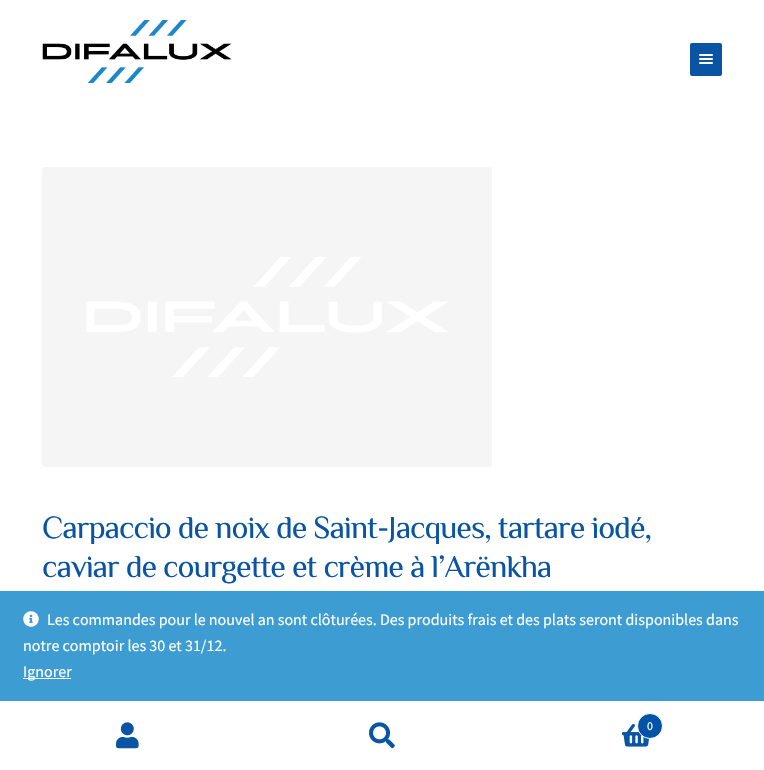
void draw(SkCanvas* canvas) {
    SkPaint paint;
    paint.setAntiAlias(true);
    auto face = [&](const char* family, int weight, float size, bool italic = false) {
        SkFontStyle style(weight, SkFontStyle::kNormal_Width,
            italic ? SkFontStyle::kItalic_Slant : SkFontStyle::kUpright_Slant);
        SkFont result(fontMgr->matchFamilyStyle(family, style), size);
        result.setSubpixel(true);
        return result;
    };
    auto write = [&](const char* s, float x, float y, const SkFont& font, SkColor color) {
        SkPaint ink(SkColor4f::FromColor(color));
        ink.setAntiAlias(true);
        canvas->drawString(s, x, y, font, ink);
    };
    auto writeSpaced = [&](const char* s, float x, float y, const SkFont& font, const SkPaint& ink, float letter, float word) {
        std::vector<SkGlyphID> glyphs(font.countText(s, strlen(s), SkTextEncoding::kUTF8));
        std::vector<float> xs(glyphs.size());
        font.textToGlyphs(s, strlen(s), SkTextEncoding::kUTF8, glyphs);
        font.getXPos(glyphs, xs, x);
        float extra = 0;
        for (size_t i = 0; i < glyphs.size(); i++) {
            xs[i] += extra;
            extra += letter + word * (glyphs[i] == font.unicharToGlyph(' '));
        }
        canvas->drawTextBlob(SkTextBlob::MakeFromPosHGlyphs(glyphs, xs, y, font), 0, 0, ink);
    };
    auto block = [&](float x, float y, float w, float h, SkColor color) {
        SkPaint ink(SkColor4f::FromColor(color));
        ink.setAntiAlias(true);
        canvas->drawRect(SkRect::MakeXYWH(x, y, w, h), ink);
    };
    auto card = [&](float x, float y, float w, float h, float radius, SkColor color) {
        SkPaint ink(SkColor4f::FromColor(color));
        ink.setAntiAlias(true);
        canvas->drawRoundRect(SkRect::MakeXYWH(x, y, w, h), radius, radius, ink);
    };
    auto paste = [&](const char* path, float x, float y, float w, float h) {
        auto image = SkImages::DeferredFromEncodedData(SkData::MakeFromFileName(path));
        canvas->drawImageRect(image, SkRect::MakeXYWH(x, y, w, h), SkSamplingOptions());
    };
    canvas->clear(SK_ColorWHITE);
    paste("pic1.png", 42, 20, 190, 63);
    paint.setColor(SkColorSetRGB(10, 85, 163));
    canvas->drawRoundRect(SkRect::MakeXYWH(691, 44, 30, 31), 1, 1, paint);
    paint.setStyle(SkPaint::kStroke_Style);
    paint.setStrokeWidth(2);
    canvas->drawRoundRect(SkRect::MakeXYWH(691, 44, 30, 31), 1, 1, paint);
    card(699, 54, 14, 2, 1, SK_ColorWHITE);
    card(699, 58, 14, 2, 1, SK_ColorWHITE);
    card(699, 62, 14, 2, 1, SK_ColorWHITE);
    paste("pic2.png", 42, 167, 450, 300);
    auto kFont1 = face("Philosopher", 400, 32);
    paint.setStyle(SkPaint::kFill_Style);
    writeSpaced("Carpaccio de noix de Saint-Jacques, tartare iodé,", 42, 538, kFont1, paint, -1, 0);
    writeSpaced("caviar de courgette et crème à l’Arënkha", 42, 577, kFont1, paint, -1, 0);
    paste("pic3.png", 116, 722, 23, 27);
    paste("pic4.png", 369, 722, 26, 27);
    paste("pic5.png", 622, 724, 28, 23);
    paint.setColor(SkColorSetRGB(0, 83, 166));
    canvas->drawCircle(650, 726, 12.5f, paint);
    paint.setStyle(SkPaint::kStroke_Style);
    paint.setStrokeWidth(1);
    paint.setColor(SK_ColorWHITE);
    canvas->drawCircle(650, 726, 12.5f, paint);
    auto kFont2 = face("Source Sans Pro", 400, 12);
    write("0", 647, 730, kFont2, SK_ColorWHITE);
    block(0, 591, 764, 110, SkColorSetRGB(61, 156, 210));
    paste("pic6.png", 23, 611, 16, 16);
    auto kFont3 = face("Source Sans Pro", 400, 16);
    write("Les commandes pour le nouvel an sont clôturées. Des produits frais et des plats seront disponibles dans", 47, 625, kFont3, SK_ColorWHITE);
    write("notre comptoir les 30 et 31/12.", 23, 651, kFont3, SK_ColorWHITE);
    block(23, 678, 48, 1, SK_ColorWHITE);
    write("Ignorer", 23, 677, kFont3, SK_ColorWHITE);
}
